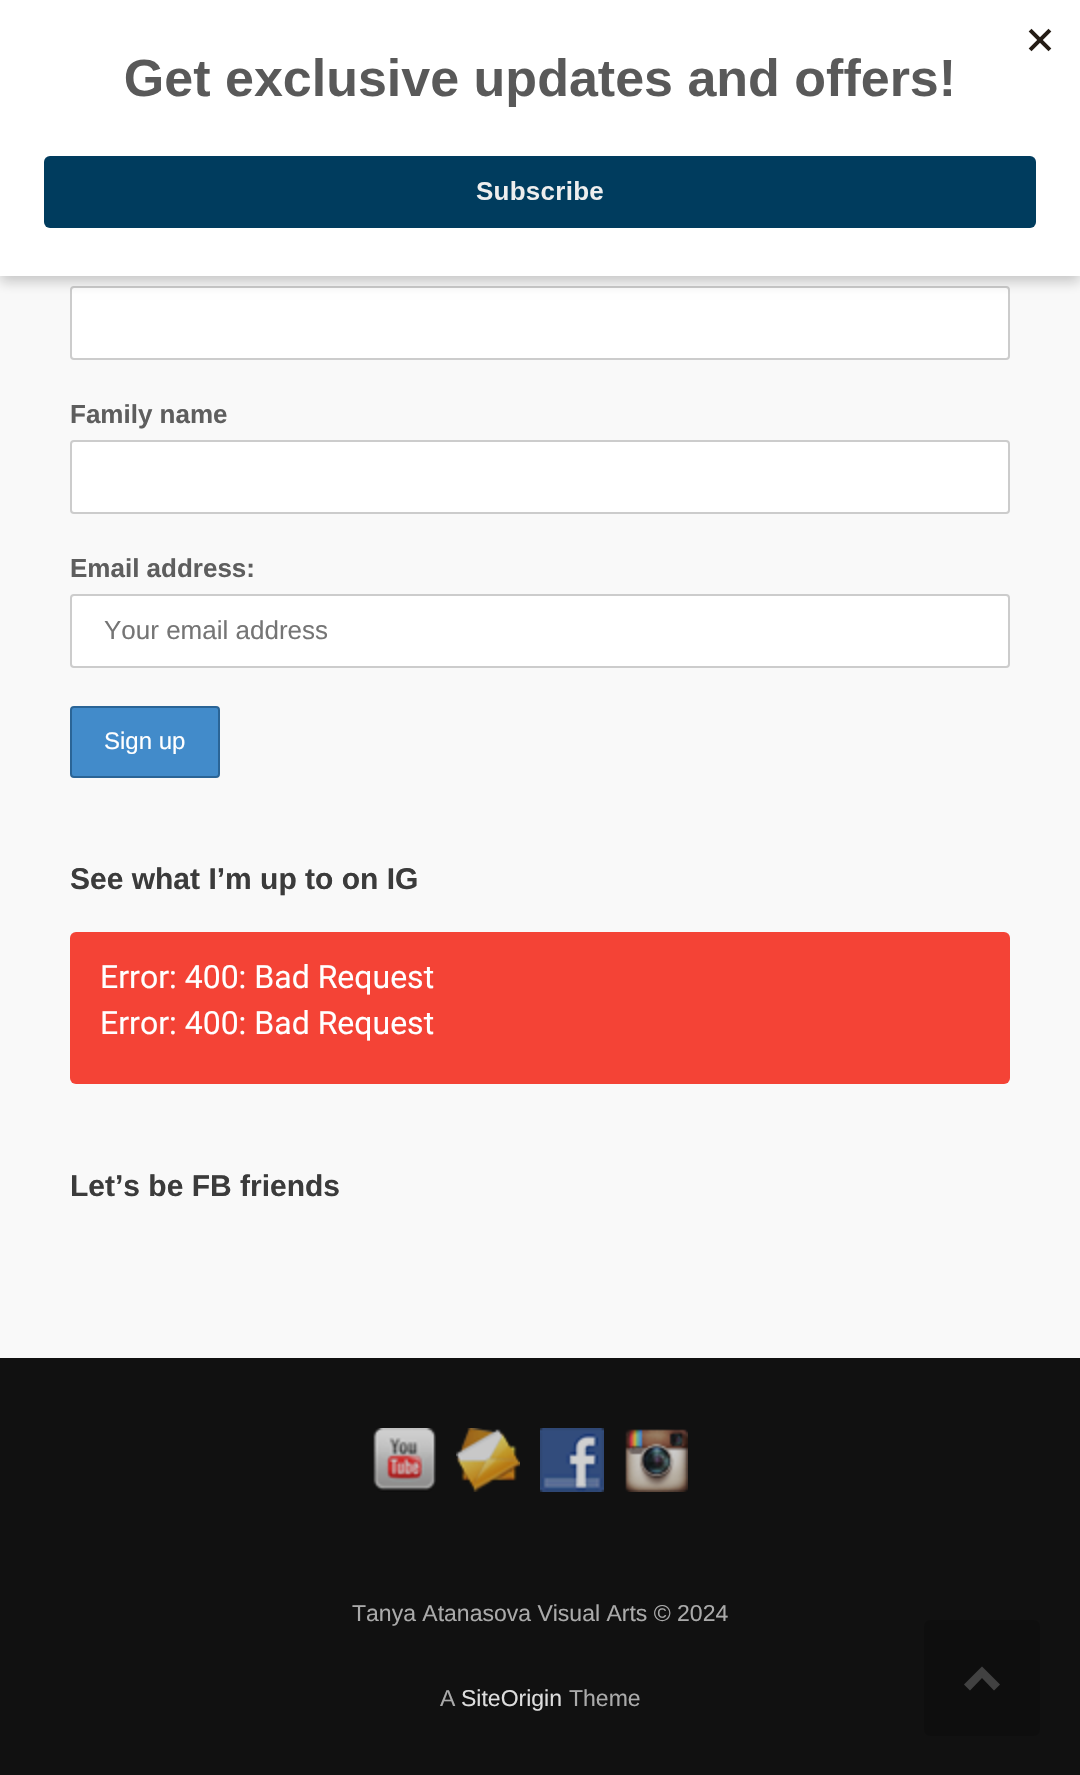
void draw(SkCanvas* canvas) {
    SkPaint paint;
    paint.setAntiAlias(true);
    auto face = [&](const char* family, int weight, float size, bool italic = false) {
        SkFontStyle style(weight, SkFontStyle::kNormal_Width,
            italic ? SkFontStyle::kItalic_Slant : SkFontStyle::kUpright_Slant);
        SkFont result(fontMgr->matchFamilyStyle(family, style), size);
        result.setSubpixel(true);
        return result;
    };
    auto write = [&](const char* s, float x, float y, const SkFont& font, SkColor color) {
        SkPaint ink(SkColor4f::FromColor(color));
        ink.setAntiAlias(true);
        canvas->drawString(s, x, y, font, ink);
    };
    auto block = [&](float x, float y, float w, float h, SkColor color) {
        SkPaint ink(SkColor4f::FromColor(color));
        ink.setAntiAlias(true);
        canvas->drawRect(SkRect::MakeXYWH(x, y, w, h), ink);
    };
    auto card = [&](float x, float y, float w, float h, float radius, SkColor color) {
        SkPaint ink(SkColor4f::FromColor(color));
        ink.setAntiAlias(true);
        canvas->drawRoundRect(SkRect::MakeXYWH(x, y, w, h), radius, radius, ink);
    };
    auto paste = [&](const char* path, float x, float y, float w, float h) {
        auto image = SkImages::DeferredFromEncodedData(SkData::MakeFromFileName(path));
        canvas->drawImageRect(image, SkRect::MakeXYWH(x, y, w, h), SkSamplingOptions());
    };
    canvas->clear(SkColorSetRGB(17, 17, 17));
    block(0, 276, 1080, 1082, SkColorSetRGB(249, 249, 249));
    paint.setColor(SK_ColorWHITE);
    canvas->drawRoundRect(SkRect::MakeXYWH(71, 287, 938, 72), 3, 3, paint);
    paint.setStyle(SkPaint::kStroke_Style);
    paint.setStrokeWidth(2);
    paint.setColor(SkColorSetRGB(204, 204, 204));
    canvas->drawRoundRect(SkRect::MakeXYWH(71, 287, 938, 72), 3, 3, paint);
    paint.setStyle(SkPaint::kFill_Style);
    paint.setColor(SkColorSetARGB(51, 0, 0, 0));
    paint.setMaskFilter(SkMaskFilter::MakeBlur(kNormal_SkBlurStyle, 6));
    canvas->drawRect(SkRect::MakeXYWH(0, 6, 1080, 276), paint);
    paint.setMaskFilter(nullptr);
    block(0, 0, 1080, 276, SK_ColorWHITE);
    paste("pic1.png", 44, 28, 1008, 200);
    auto kFont1 = face("Liberation Sans", 700, 26);
    write("Family name", 70, 423, kFont1, SkColorSetRGB(94, 94, 94));
    paint.setColor(SK_ColorWHITE);
    canvas->drawRoundRect(SkRect::MakeXYWH(71, 441, 938, 72), 3, 3, paint);
    paint.setStyle(SkPaint::kStroke_Style);
    paint.setColor(SkColorSetRGB(204, 204, 204));
    canvas->drawRoundRect(SkRect::MakeXYWH(71, 441, 938, 72), 3, 3, paint);
    write("Email address:", 70, 577, kFont1, SkColorSetRGB(94, 94, 94));
    paint.setStyle(SkPaint::kFill_Style);
    paint.setColor(SK_ColorWHITE);
    canvas->drawRoundRect(SkRect::MakeXYWH(71, 595, 938, 72), 3, 3, paint);
    paint.setStyle(SkPaint::kStroke_Style);
    paint.setColor(SkColorSetRGB(204, 204, 204));
    canvas->drawRoundRect(SkRect::MakeXYWH(71, 595, 938, 72), 3, 3, paint);
    auto kFont2 = face("Liberation Sans", 400, 26);
    write("Your email address", 104, 639, kFont2, SkColorSetRGB(117, 117, 117));
    paint.setStyle(SkPaint::kFill_Style);
    paint.setColor(SkColorSetRGB(66, 139, 202));
    canvas->drawRoundRect(SkRect::MakeXYWH(71, 707, 148, 70), 3, 3, paint);
    paint.setStyle(SkPaint::kStroke_Style);
    paint.setColor(SkColorSetRGB(42, 100, 150));
    canvas->drawRoundRect(SkRect::MakeXYWH(71, 707, 148, 70), 3, 3, paint);
    auto kFont3 = face("Liberation Sans", 400, 24);
    write("Sign up", 104, 749, kFont3, SK_ColorWHITE);
    auto kFont4 = face("Liberation Sans", 700, 30);
    write("See what I’m up to on IG", 70, 889, kFont4, SkColorSetRGB(59, 59, 59));
    card(70, 932, 940, 152, 6, SkColorSetRGB(244, 67, 54));
    auto kFont5 = face("Roboto", 400, 32);
    write("Error: 400: Bad Request", 100, 988, kFont5, SK_ColorWHITE);
    write("Error: 400: Bad Request", 100, 1034, kFont5, SK_ColorWHITE);
    write("Let’s be FB friends", 70, 1196, kFont4, SkColorSetRGB(59, 59, 59));
    paste("pic2.png", 373, 1428, 63, 64);
    paste("pic3.png", 456, 1428, 64, 64);
    paste("pic4.png", 540, 1428, 64, 64);
    paste("pic5.png", 625, 1429, 63, 63);
    auto kFont6 = face("Liberation Sans", 400, 23);
    write("Tanya Atanasova Visual Arts © 2024", 352, 1621, kFont6, SkColorSetRGB(170, 170, 170));
    write("A", 440, 1706, kFont6, SkColorSetRGB(170, 170, 170));
    write("SiteOrigin", 461, 1706, kFont6, SkColorSetRGB(221, 221, 221));
    write("Theme", 569, 1706, kFont6, SkColorSetRGB(170, 170, 170));
    card(924, 1620, 116, 116, 6, SkColorSetRGB(14, 14, 14));
    paint.setStyle(SkPaint::kFill_Style);
    paint.setColor(SkColorSetRGB(65, 65, 65));
    canvas->drawPath(SkPathBuilder().moveTo(1000, 1684.5f).lineTo(982, 1666.5f).lineTo(964, 1684.5f).lineTo(970, 1690.5f).lineTo(982, 1678).lineTo(994, 1690.5f).close().detach(), paint);
}
